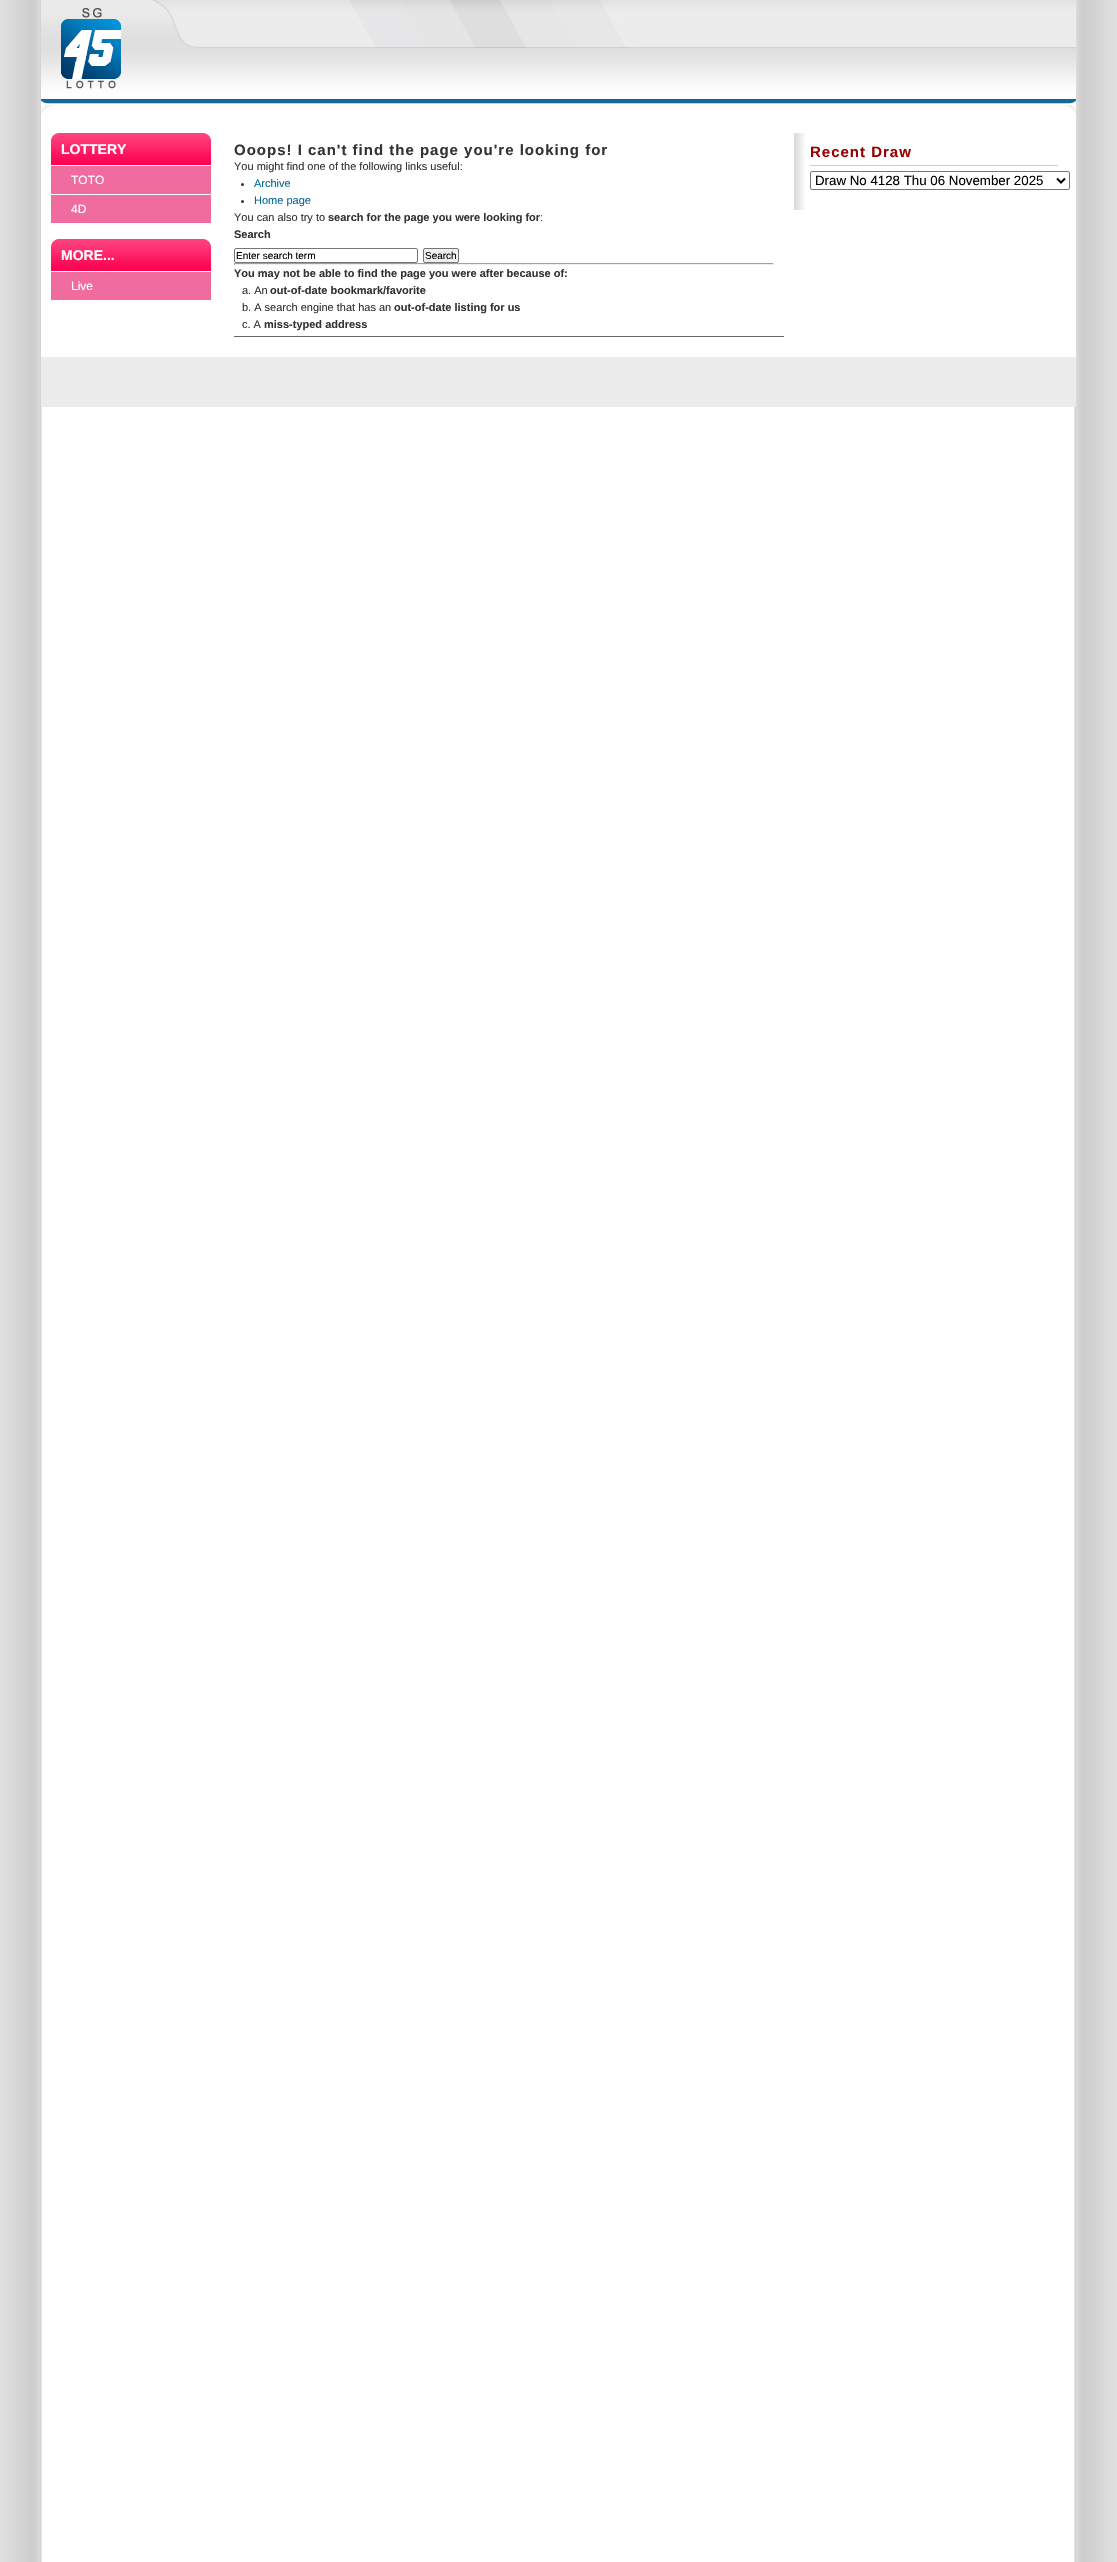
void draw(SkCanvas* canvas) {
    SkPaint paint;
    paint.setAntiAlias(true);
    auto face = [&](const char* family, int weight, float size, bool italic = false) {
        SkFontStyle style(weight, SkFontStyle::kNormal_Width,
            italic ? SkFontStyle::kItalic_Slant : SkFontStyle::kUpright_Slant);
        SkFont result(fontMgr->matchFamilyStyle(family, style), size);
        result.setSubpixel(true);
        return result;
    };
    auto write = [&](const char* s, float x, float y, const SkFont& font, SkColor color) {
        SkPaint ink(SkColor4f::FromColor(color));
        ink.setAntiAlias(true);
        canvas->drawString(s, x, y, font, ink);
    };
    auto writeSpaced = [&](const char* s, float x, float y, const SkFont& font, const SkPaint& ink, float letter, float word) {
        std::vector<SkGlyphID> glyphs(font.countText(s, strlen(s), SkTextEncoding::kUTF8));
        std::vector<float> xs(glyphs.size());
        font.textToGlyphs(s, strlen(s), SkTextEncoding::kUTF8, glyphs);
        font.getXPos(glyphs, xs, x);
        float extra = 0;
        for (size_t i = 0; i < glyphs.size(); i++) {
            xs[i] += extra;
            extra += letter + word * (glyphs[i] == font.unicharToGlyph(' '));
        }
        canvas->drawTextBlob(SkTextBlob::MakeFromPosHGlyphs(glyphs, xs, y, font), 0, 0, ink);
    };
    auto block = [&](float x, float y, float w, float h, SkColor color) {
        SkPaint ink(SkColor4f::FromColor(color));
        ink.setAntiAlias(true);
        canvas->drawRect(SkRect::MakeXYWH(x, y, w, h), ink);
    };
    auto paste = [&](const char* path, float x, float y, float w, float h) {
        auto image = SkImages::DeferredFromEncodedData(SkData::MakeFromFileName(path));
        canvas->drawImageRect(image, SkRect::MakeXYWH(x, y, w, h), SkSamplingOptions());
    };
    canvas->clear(SK_ColorWHITE);
    paste("pic1.png", 0, 0, 1117, 2562);
    block(41, 114, 1035, 243, SK_ColorWHITE);
    paste("pic2.png", 41, 0, 1035, 114);
    paste("pic3.png", 61, 8, 60, 81);
    paste("pic4.png", 51, 133, 160, 32);
    auto kFont1 = face("Liberation Sans", 700, 14);
    write("LOTTERY", 61, 154, kFont1, SK_ColorWHITE);
    block(51, 166, 160, 57, SkColorSetRGB(241, 108, 158));
    block(51, 194, 160, 1, SK_ColorWHITE);
    auto kFont2 = face("Liberation Sans", 400, 12);
    write("TOTO", 71, 184, kFont2, SK_ColorWHITE);
    write("4D", 71, 213, kFont2, SK_ColorWHITE);
    paste("pic4.png", 51, 239, 160, 32);
    write("MORE...", 61, 260, kFont1, SK_ColorWHITE);
    block(51, 272, 160, 28, SkColorSetRGB(241, 108, 158));
    write("Live", 71, 290, kFont2, SK_ColorWHITE);
    block(234, 336, 550, 1, SkColorSetRGB(105, 105, 105));
    auto kFont3 = face("Liberation Sans", 700, 15);
    paint.setColor(SkColorSetRGB(51, 51, 51));
    writeSpaced("Ooops! I can't find the page you're looking for", 234, 155, kFont3, paint, 1, 0);
    auto kFont4 = face("Liberation Sans", 400, 11);
    write("You might find one of the following links useful:", 234, 170, kFont4, SkColorSetRGB(51, 51, 51));
    canvas->drawCircle(242.5f, 184.5f, 1.5f, paint);
    write("Archive", 254, 187, kFont4, SkColorSetRGB(0, 102, 153));
    canvas->drawCircle(242.5f, 201.5f, 1.5f, paint);
    write("Home page", 254, 204, kFont4, SkColorSetRGB(0, 102, 153));
    write("You can also try to", 234, 221, kFont4, SkColorSetRGB(51, 51, 51));
    auto kFont5 = face("Liberation Sans", 700, 11);
    write("search for the page you were looking for", 328, 221, kFont5, SkColorSetRGB(51, 51, 51));
    write(":", 540, 221, kFont4, SkColorSetRGB(51, 51, 51));
    write("Search", 234, 238, kFont5, SkColorSetRGB(51, 51, 51));
    paint.setStyle(SkPaint::kStroke_Style);
    paint.setStrokeWidth(1);
    paint.setColor(SkColorSetRGB(118, 118, 118));
    canvas->drawRoundRect(SkRect::MakeXYWH(234.5f, 248.5f, 183, 14), 1.5f, 1.5f, paint);
    auto kFont6 = face("Liberation Sans", 400, 10);
    write("Enter search term", 236, 259, kFont6, SK_ColorBLACK);
    paint.setStyle(SkPaint::kFill_Style);
    paint.setColor(SkColorSetRGB(239, 239, 239));
    canvas->drawRoundRect(SkRect::MakeXYWH(423.5f, 248.5f, 35, 14), 1.5f, 1.5f, paint);
    paint.setStyle(SkPaint::kStroke_Style);
    paint.setColor(SkColorSetRGB(118, 118, 118));
    canvas->drawRoundRect(SkRect::MakeXYWH(423.5f, 248.5f, 35, 14), 1.5f, 1.5f, paint);
    write("Search", 425, 259, kFont6, SK_ColorBLACK);
    block(234, 263, 540, 1, SkColorSetRGB(159, 159, 159));
    block(773, 263, 1, 2, SkColorSetRGB(238, 238, 238));
    block(234, 264, 540, 1, SkColorSetRGB(238, 238, 238));
    block(234, 263, 1, 2, SkColorSetRGB(159, 159, 159));
    write("You may not be able to find the page you were after because of:", 234, 277, kFont5, SkColorSetRGB(51, 51, 51));
    write("a. An", 242, 294, kFont4, SkColorSetRGB(51, 51, 51));
    write("out-of-date bookmark/favorite", 270, 294, kFont5, SkColorSetRGB(51, 51, 51));
    write("b. A search engine that has an", 242, 311, kFont4, SkColorSetRGB(51, 51, 51));
    write("out-of-date listing for us", 394, 311, kFont5, SkColorSetRGB(51, 51, 51));
    write("c. A", 242, 328, kFont4, SkColorSetRGB(51, 51, 51));
    write("miss-typed address", 264, 328, kFont5, SkColorSetRGB(51, 51, 51));
    paste("pic5.png", 794, 133, 11, 77);
    block(810, 165, 248, 1, SkColorSetRGB(204, 204, 204));
    paint.setStyle(SkPaint::kFill_Style);
    paint.setColor(SkColorSetRGB(153, 0, 0));
    writeSpaced("Recent Draw", 810, 157, kFont3, paint, 1, 0);
    paint.setStyle(SkPaint::kStroke_Style);
    paint.setColor(SkColorSetRGB(118, 118, 118));
    canvas->drawRoundRect(SkRect::MakeXYWH(810.5f, 171.5f, 259, 18), 1.5f, 1.5f, paint);
    paint.setStrokeWidth(2);
    paint.setColor(SK_ColorBLACK);
    canvas->drawPath(SkPathBuilder().moveTo(1057, 178.5f).lineTo(1061, 182.5f).lineTo(1065, 178.5f).detach(), paint);
    auto kFont7 = face("Liberation Sans", 400, 13.3f);
    write("Draw No 4128 Thu 06 November 2025", 815, 185, kFont7, SK_ColorBLACK);
    block(41, 357, 1035, 50, SkColorSetRGB(235, 235, 235));
}
